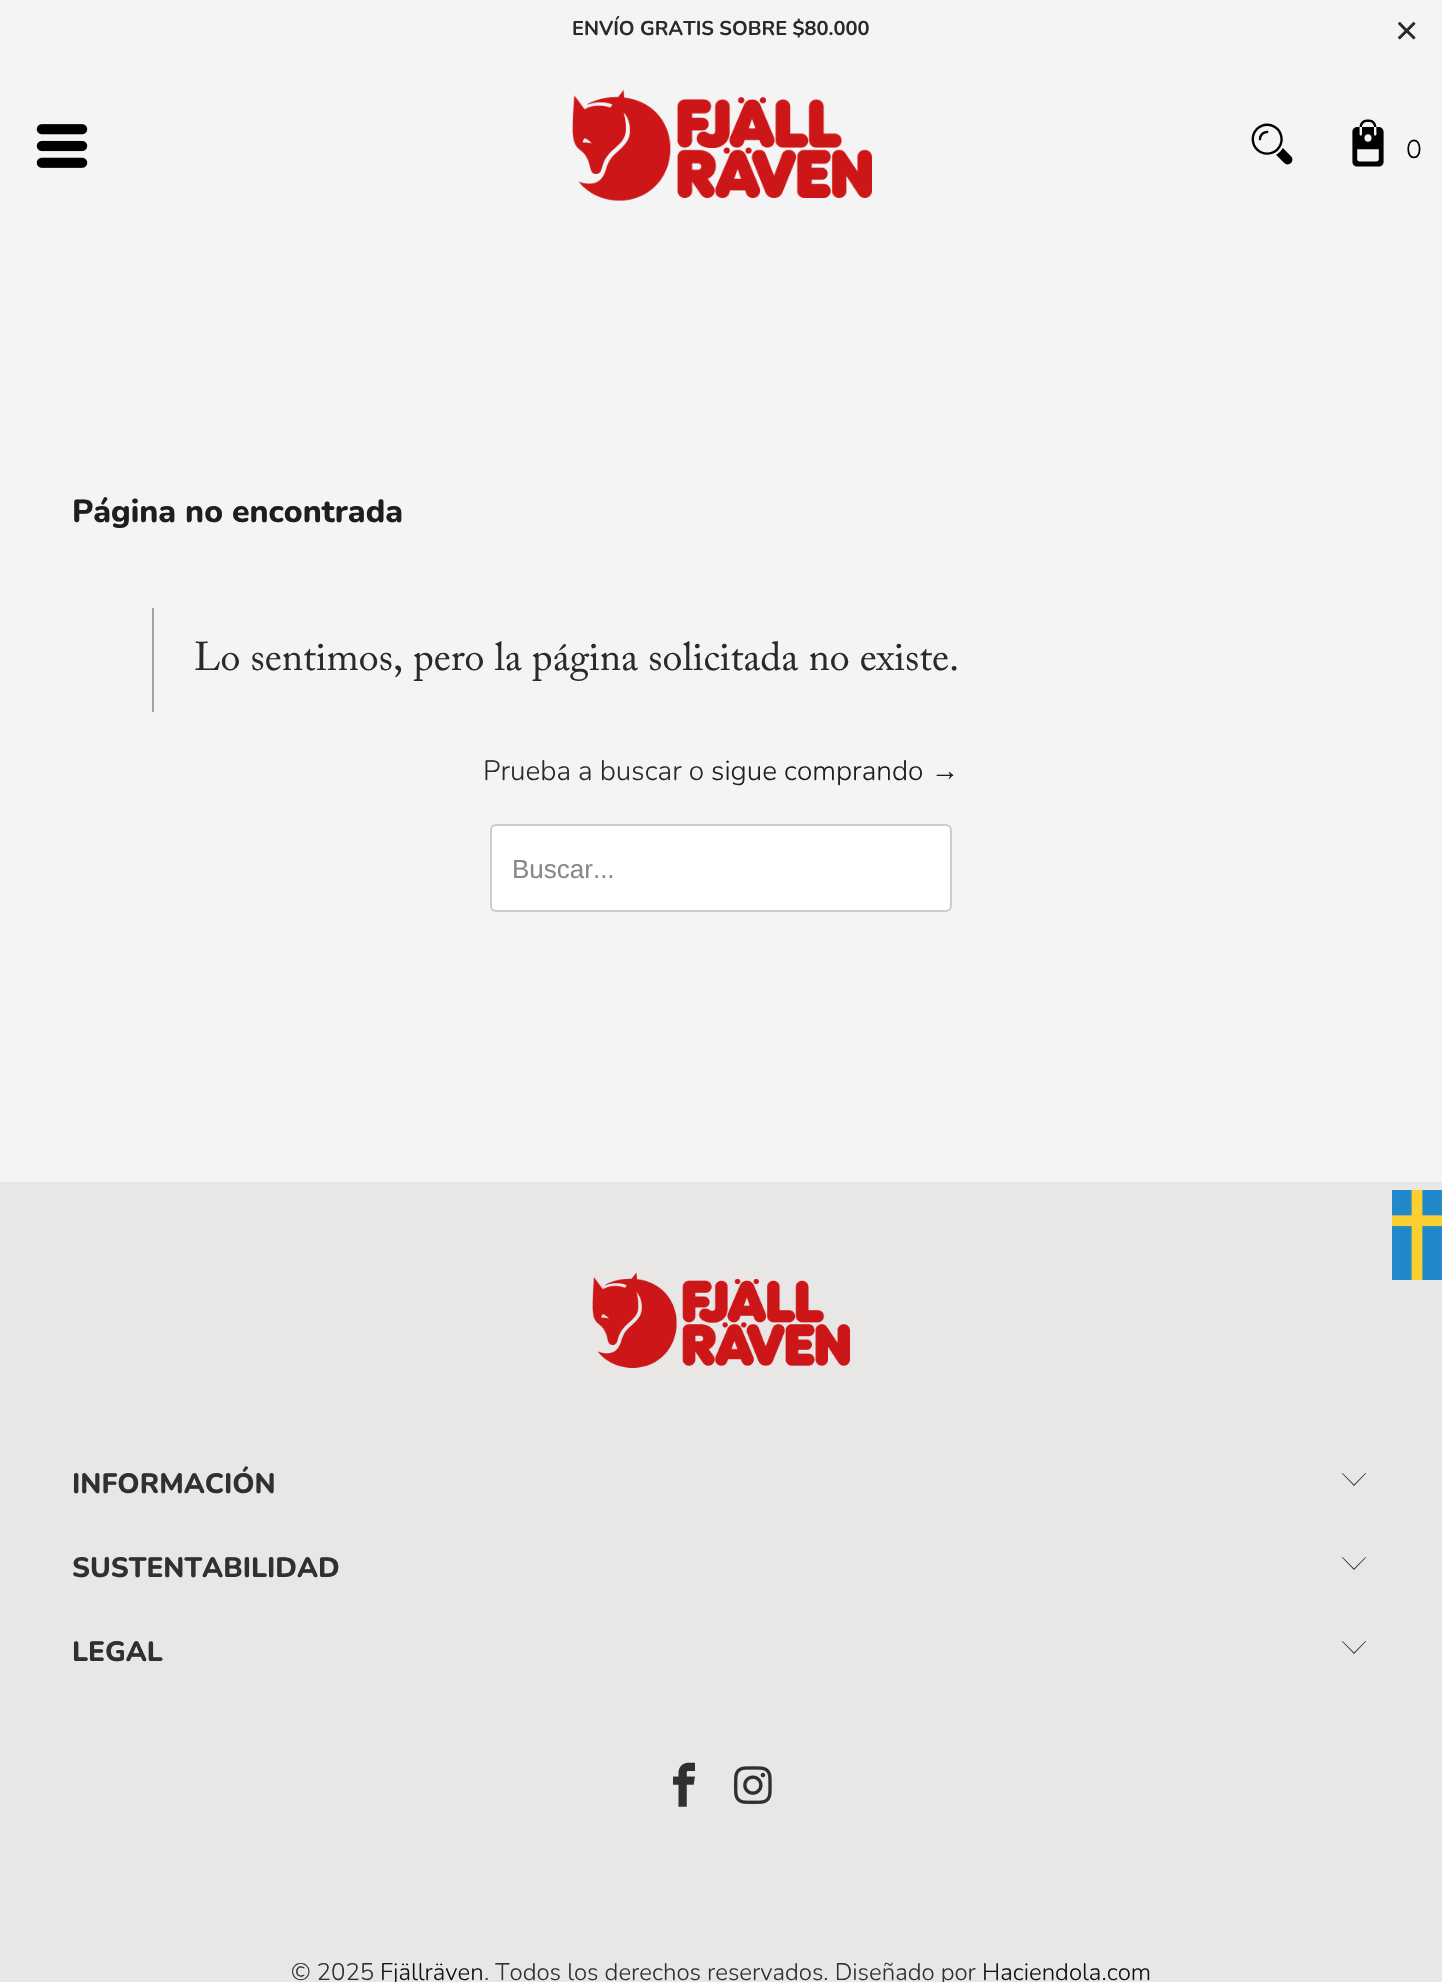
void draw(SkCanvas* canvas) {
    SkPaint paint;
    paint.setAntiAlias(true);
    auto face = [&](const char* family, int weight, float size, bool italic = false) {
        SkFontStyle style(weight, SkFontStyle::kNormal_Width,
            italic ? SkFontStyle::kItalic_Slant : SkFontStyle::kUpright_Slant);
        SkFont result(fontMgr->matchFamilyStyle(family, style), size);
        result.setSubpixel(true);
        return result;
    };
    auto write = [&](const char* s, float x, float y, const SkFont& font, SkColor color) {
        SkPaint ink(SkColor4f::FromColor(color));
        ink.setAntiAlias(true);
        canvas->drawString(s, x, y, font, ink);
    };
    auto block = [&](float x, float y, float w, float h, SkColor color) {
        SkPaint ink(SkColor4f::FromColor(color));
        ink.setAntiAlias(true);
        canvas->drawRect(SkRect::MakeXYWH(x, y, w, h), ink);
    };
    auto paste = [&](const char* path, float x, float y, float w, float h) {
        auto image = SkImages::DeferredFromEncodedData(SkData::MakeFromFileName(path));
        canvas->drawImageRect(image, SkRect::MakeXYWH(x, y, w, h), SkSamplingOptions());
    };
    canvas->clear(SkColorSetRGB(244, 244, 244));
    auto kFont1 = face("Nunito", 700, 20);
    write("ENVÍO GRATIS SOBRE $80.000", 572, 35, kFont1, SkColorSetRGB(43, 42, 42));
    auto kFont2 = face("Liberation Sans", 400, 40);
    write("×", 1395, 44, kFont2, SkColorSetRGB(43, 42, 42));
    paste("pic1.png", 36, 124, 52, 44);
    paste("pic2.png", 572, 89, 300, 112);
    paste("pic3.png", 1251, 123, 42, 42);
    paste("pic4.png", 1352, 119, 32, 48);
    auto kFont3 = face("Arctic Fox", 400, 26);
    write("0", 1406, 158, kFont3, SK_ColorBLACK);
    auto kFont4 = face("Nunito", 800, 32);
    write("Página no encontrada", 72, 522, kFont4, SkColorSetRGB(30, 30, 30));
    block(152, 608, 2, 104, SkColorSetRGB(162, 162, 162));
    auto kFont5 = face("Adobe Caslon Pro", 400, 40);
    write("Lo sentimos, pero la página solicitada no existe.", 194, 670, kFont5, SkColorSetRGB(43, 42, 42));
    auto kFont6 = face("Nunito", 300, 28);
    write("Prueba a buscar o", 483, 780, kFont6, SkColorSetRGB(43, 42, 42));
    write("sigue comprando", 711, 780, kFont6, SkColorSetRGB(30, 30, 30));
    auto kFont7 = face("Liberation Sans", 400, 28);
    write("→", 931, 780, kFont7, SkColorSetRGB(30, 30, 30));
    paint.setColor(SK_ColorWHITE);
    canvas->drawRoundRect(SkRect::MakeXYWH(491, 825, 460, 86), 5, 5, paint);
    paint.setStyle(SkPaint::kStroke_Style);
    paint.setStrokeWidth(2);
    paint.setColor(SkColorSetRGB(204, 204, 204));
    canvas->drawRoundRect(SkRect::MakeXYWH(491, 825, 460, 86), 5, 5, paint);
    auto kFont8 = face("Liberation Sans", 400, 26);
    write("Buscar...", 512, 878, kFont8, SkColorSetRGB(136, 136, 136));
    block(0, 1182, 1442, 800, SkColorSetRGB(232, 231, 230));
    paste("pic5.png", 1392, 1190, 50, 90);
    paste("pic6.png", 592, 1272, 258, 96);
    auto kFont9 = face("Nunito", 800, 28);
    write("INFORMACIÓN", 72, 1493, kFont9, SkColorSetRGB(48, 48, 48));
    paint.setStyle(SkPaint::kFill_Style);
    paint.setColor(SkColorSetRGB(48, 48, 48));
    canvas->drawPath(SkPathBuilder().moveTo(1354, 1486).lineTo(1342, 1473.5f).lineTo(1342.5f, 1473).lineTo(1354, 1484.5f).lineTo(1365.5f, 1473).lineTo(1366, 1473.5f).close().detach(), paint);
    write("SUSTENTABILIDAD", 72, 1577, kFont9, SkColorSetRGB(48, 48, 48));
    canvas->drawPath(SkPathBuilder().moveTo(1354, 1570).lineTo(1342, 1557.5f).lineTo(1342.5f, 1557).lineTo(1354, 1568.5f).lineTo(1365.5f, 1557).lineTo(1366, 1557.5f).close().detach(), paint);
    write("LEGAL", 72, 1661, kFont9, SkColorSetRGB(48, 48, 48));
    canvas->drawPath(SkPathBuilder().moveTo(1354, 1654).lineTo(1342, 1641.5f).lineTo(1342.5f, 1641).lineTo(1354, 1652.5f).lineTo(1365.5f, 1641).lineTo(1366, 1641.5f).close().detach(), paint);
    paste("pic7.png", 673, 1762, 22, 45);
    paste("pic8.png", 734, 1766, 38, 38);
    auto kFont10 = face("Nunito", 300, 24);
    write("© 2025", 291, 1980, kFont10, SkColorSetRGB(48, 48, 48));
    write("Fjällräven", 380, 1980, kFont10, SkColorSetRGB(17, 17, 17));
    write(". Todos los derechos reservados. Diseñado por", 484, 1980, kFont10, SkColorSetRGB(48, 48, 48));
    write("Haciendola.com", 982, 1980, kFont10, SkColorSetRGB(17, 17, 17));
}
